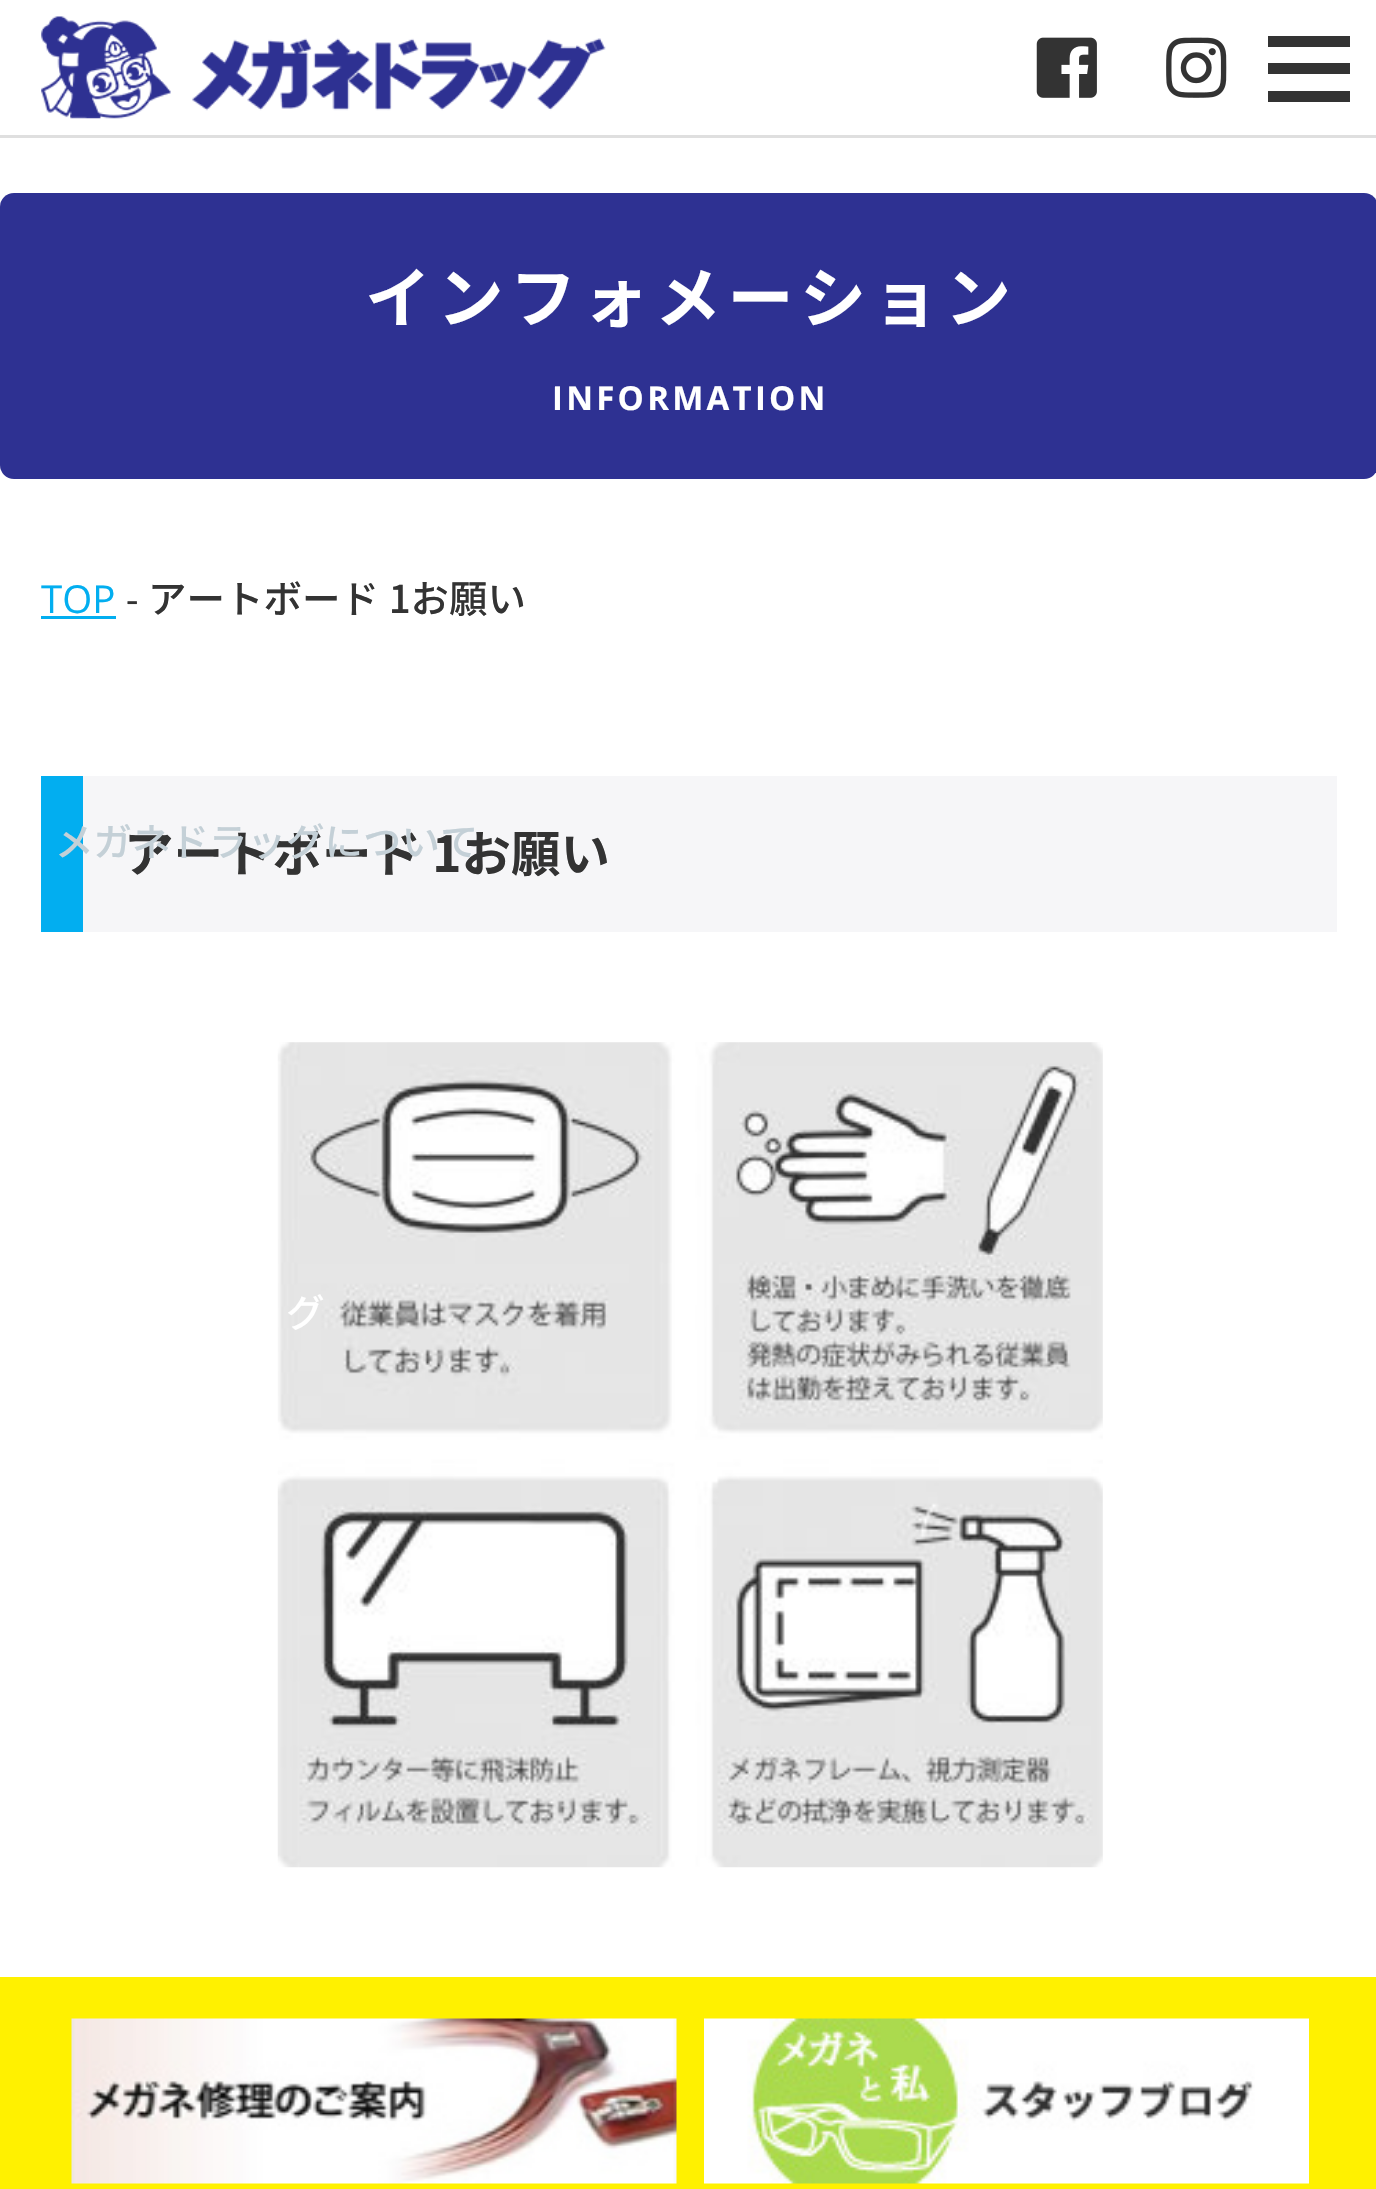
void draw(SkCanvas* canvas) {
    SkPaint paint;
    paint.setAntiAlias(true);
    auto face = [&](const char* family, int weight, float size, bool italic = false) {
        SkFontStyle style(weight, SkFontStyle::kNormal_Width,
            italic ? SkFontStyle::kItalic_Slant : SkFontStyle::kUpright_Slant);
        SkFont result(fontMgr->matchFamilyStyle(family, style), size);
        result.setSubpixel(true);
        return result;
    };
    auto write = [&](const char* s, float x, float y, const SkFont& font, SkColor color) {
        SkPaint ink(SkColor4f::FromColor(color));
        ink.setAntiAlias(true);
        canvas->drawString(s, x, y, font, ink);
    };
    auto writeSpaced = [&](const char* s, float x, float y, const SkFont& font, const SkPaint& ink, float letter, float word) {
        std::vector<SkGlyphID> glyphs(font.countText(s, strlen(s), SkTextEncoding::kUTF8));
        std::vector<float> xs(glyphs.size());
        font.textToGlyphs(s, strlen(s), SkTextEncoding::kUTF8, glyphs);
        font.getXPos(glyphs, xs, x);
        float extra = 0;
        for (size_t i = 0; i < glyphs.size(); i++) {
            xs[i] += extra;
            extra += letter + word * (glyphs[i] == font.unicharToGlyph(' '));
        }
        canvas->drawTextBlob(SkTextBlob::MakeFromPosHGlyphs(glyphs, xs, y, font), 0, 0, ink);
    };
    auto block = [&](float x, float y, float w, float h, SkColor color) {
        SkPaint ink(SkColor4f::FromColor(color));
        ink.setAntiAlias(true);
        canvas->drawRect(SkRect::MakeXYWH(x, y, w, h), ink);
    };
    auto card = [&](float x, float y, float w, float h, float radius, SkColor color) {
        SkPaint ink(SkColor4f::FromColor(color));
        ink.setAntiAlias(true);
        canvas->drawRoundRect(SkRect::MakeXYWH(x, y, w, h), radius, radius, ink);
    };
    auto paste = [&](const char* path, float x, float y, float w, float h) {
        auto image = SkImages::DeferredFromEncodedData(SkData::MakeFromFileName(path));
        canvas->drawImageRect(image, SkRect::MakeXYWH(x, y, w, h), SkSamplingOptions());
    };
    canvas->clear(SK_ColorWHITE);
    card(0, 193, 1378, 286, 14, SkColorSetRGB(46, 49, 146));
    auto kFont1 = face("Noto Sans JP", 700, 66);
    paint.setColor(SK_ColorWHITE);
    writeSpaced("インフォメーション", 365, 322, kFont1, paint, 6.5f, 0);
    auto kFont2 = face("Open Sans", 700, 33);
    writeSpaced("INFORMATION", 552, 410, kFont2, paint, 3.25f, 0);
    auto kFont3 = face("Open Sans", 400, 38.5f);
    write("TOP", 41, 613, kFont3, SkColorSetRGB(2, 174, 240));
    block(41, 616, 75, 3, SkColorSetRGB(2, 174, 240));
    write("-", 126, 613, kFont3, SkColorSetRGB(51, 51, 51));
    auto kFont4 = face("Noto Sans JP", 500, 38.5f);
    paint.setColor(SkColorSetRGB(51, 51, 51));
    writeSpaced("アートボード 1お願い", 148, 613, kFont4, paint, 0, 1);
    block(83, 776, 1254, 156, SkColorSetRGB(246, 246, 248));
    block(41, 776, 42, 156, SkColorSetRGB(2, 174, 240));
    auto kFont5 = face("Noto Sans JP", 700, 49.5f);
    write("アートボード 1お願い", 124, 872, kFont5, SkColorSetRGB(51, 51, 51));
    paste("pic1.png", 277, 1042, 826, 826);
    block(0, 135, 1376, 3, SkColorSetRGB(223, 223, 223));
    paste("pic2.png", 41, 16, 565, 103);
    paste("pic3.png", 1036, 37, 61, 61);
    paste("pic4.png", 1166, 37, 61, 61);
    block(1268, 36, 82, 11, SkColorSetRGB(51, 51, 51));
    block(1268, 63, 82, 11, SkColorSetRGB(51, 51, 51));
    block(1268, 91, 82, 11, SkColorSetRGB(51, 51, 51));
    write("メガネドラッグについて", 55, 856, kFont4, SkColorSetRGB(196, 208, 215));
    write("グ", 286, 1327, kFont4, SK_ColorWHITE);
    block(0, 1977, 1376, 212, SkColorSetRGB(255, 241, 0));
    paste("pic5.png", 71, 2018, 606, 166);
    paste("pic6.png", 704, 2018, 605, 166);
}
